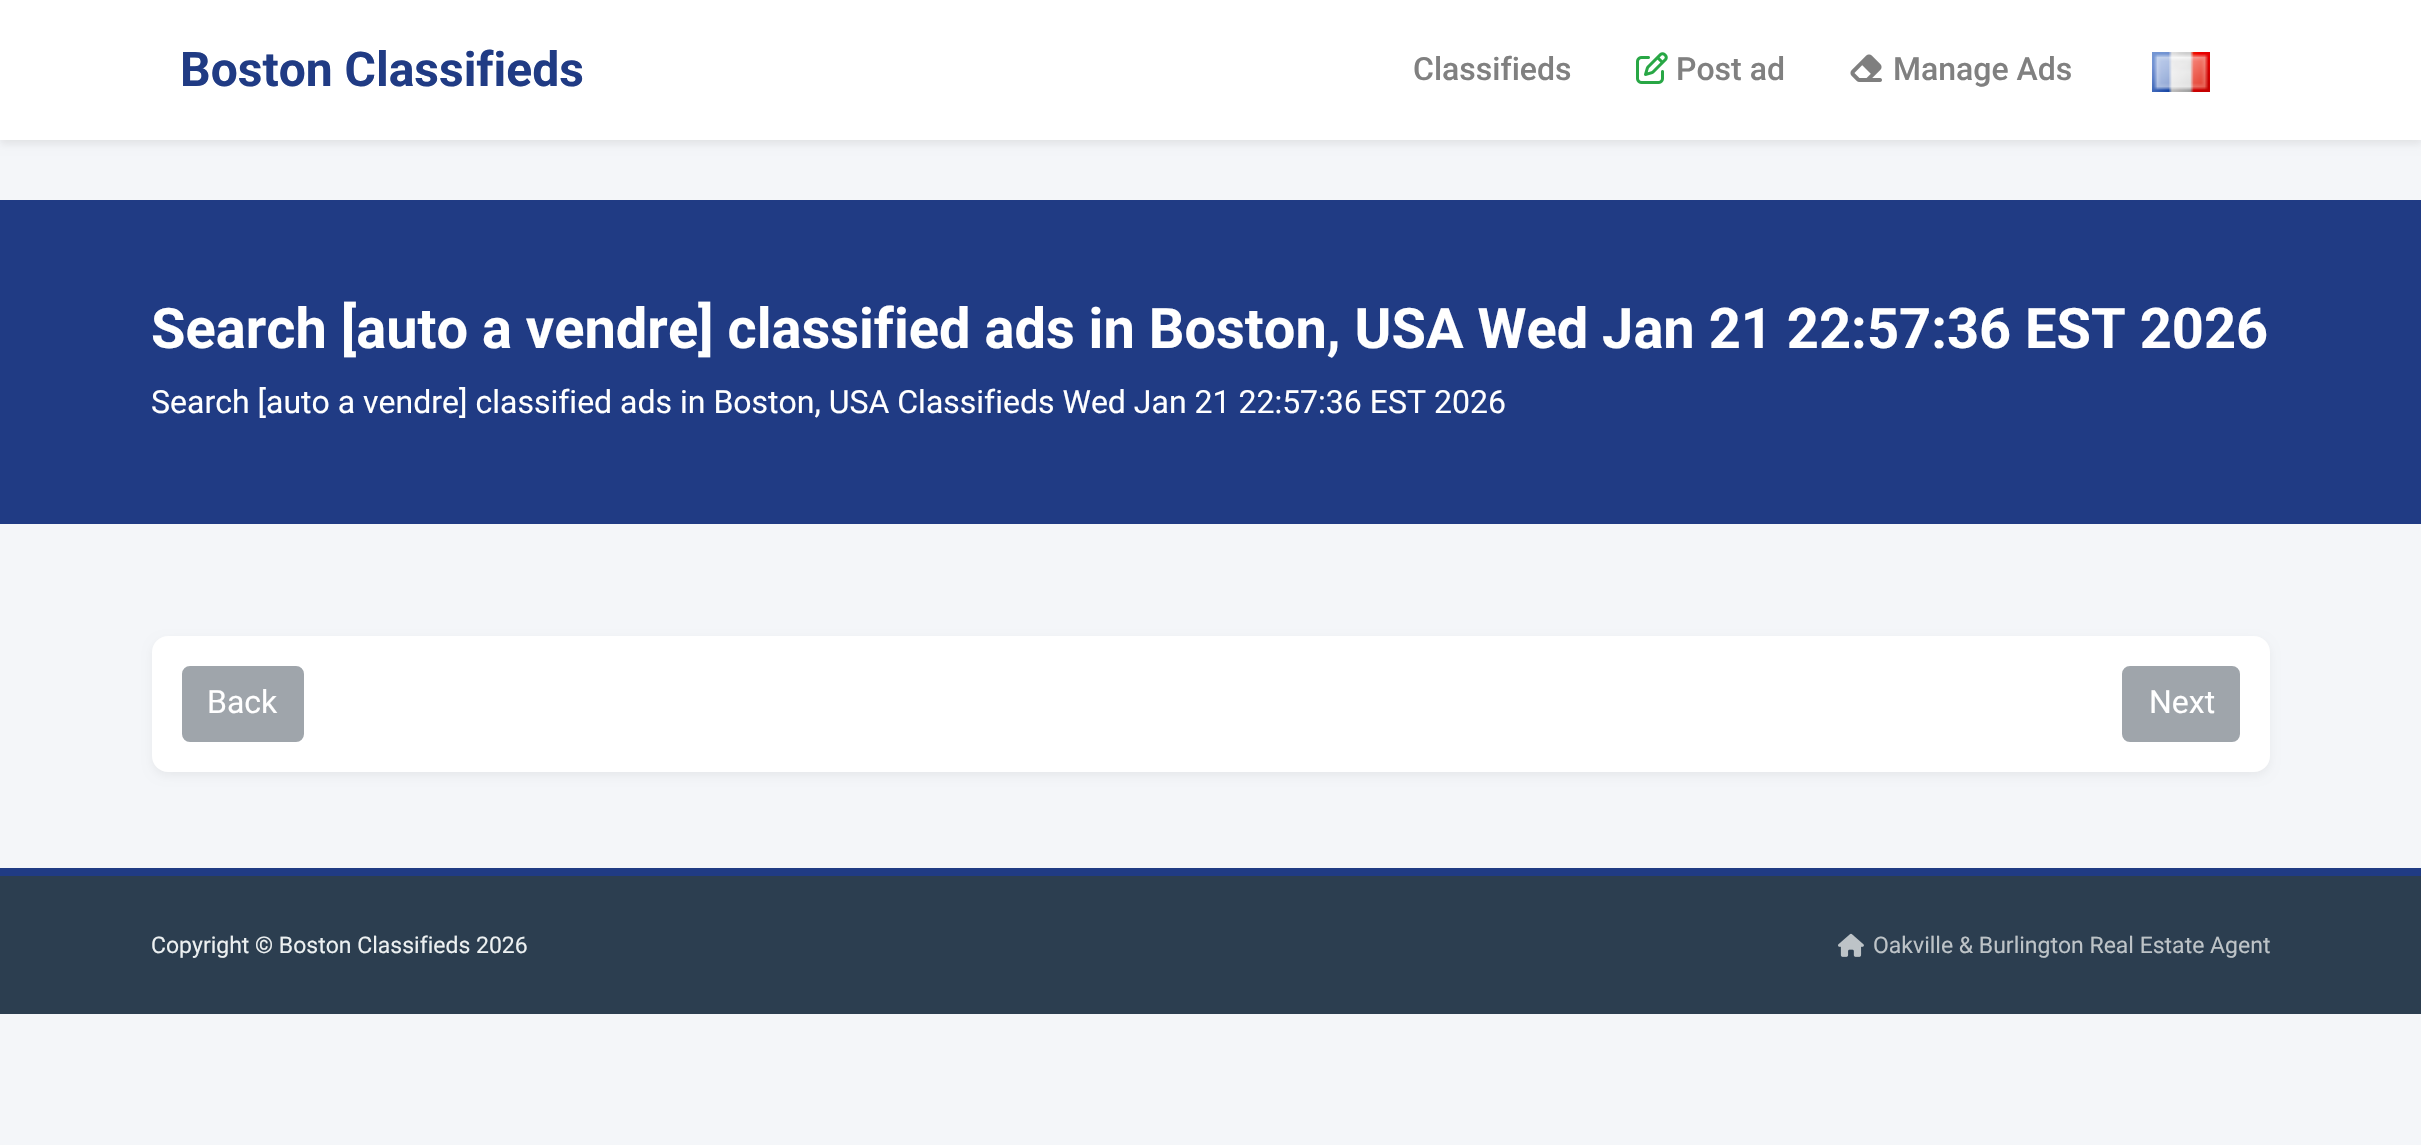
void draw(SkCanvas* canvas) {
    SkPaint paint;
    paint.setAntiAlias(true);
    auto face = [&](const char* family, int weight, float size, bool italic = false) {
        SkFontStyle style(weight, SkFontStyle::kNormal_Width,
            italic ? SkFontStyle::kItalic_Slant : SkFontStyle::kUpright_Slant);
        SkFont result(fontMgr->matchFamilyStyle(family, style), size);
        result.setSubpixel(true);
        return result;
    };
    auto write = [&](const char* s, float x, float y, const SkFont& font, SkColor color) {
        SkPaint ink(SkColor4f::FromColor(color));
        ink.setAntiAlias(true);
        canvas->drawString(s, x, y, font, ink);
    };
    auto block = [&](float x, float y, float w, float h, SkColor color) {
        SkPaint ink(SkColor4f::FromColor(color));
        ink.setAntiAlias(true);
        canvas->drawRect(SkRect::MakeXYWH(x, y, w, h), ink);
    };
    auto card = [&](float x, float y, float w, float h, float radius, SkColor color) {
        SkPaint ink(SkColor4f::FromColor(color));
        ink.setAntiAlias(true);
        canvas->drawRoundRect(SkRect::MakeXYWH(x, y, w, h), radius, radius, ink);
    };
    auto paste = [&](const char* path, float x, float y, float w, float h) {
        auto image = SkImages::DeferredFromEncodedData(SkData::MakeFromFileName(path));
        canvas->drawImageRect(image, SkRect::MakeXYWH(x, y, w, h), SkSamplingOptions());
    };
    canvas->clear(SkColorSetRGB(244, 246, 249));
    paint.setColor(SkColorSetARGB(20, 0, 0, 0));
    paint.setMaskFilter(SkMaskFilter::MakeBlur(kNormal_SkBlurStyle, 4));
    canvas->drawRect(SkRect::MakeXYWH(0, 4, 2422, 140), paint);
    paint.setMaskFilter(nullptr);
    block(0, 0, 2421, 140, SK_ColorWHITE);
    auto kFont1 = face("Roboto", 700, 48);
    write("Boston Classifieds", 180, 86, kFont1, SkColorSetRGB(32, 59, 132));
    auto kFont2 = face("Roboto", 500, 32);
    write("Classifieds", 1413, 80, kFont2, SkColorSetRGB(128, 128, 128));
    paste("pic1.png", 1636, 52, 32, 32);
    write("Post ad", 1676, 80, kFont2, SkColorSetRGB(128, 128, 128));
    paste("pic2.png", 1850, 54, 32, 28);
    write("Manage Ads", 1893, 80, kFont2, SkColorSetRGB(128, 128, 128));
    paste("pic3.png", 2152, 52, 58, 40);
    block(0, 200, 2421, 324, SkColorSetRGB(32, 59, 132));
    auto kFont3 = face("Roboto", 700, 56);
    write("Search [auto a vendre] classified ads in Boston, USA Wed Jan 21 22:57:36 EST 2026", 151, 348, kFont3, SK_ColorWHITE);
    auto kFont4 = face("Roboto", 400, 32);
    write("Search [auto a vendre] classified ads in Boston, USA Classifieds Wed Jan 21 22:57:36 EST 2026", 151, 413, kFont4, SK_ColorWHITE);
    paint.setColor(SkColorSetARGB(13, 0, 0, 0));
    paint.setMaskFilter(SkMaskFilter::MakeBlur(kNormal_SkBlurStyle, 5));
    canvas->drawRoundRect(SkRect::MakeXYWH(152, 640, 2118, 136), 16, 16, paint);
    paint.setMaskFilter(nullptr);
    card(152, 636, 2118, 136, 16, SK_ColorWHITE);
    paint.setColor(SkColorSetRGB(159, 165, 171));
    canvas->drawRoundRect(SkRect::MakeXYWH(183, 667, 120, 74), 7, 7, paint);
    paint.setStyle(SkPaint::kStroke_Style);
    paint.setStrokeWidth(2);
    canvas->drawRoundRect(SkRect::MakeXYWH(183, 667, 120, 74), 7, 7, paint);
    write("Back", 207, 713, kFont4, SK_ColorWHITE);
    paint.setStyle(SkPaint::kFill_Style);
    canvas->drawRoundRect(SkRect::MakeXYWH(2123, 667, 116, 74), 7, 7, paint);
    paint.setStyle(SkPaint::kStroke_Style);
    canvas->drawRoundRect(SkRect::MakeXYWH(2123, 667, 116, 74), 7, 7, paint);
    write("Next", 2149, 713, kFont4, SK_ColorWHITE);
    block(0, 876, 2421, 138, SkColorSetRGB(44, 62, 80));
    block(0, 868, 2421, 8, SkColorSetRGB(32, 59, 132));
    auto kFont5 = face("Roboto", 400, 23);
    write("Copyright © Boston Classifieds 2026", 151, 953, kFont5, SkColorSetRGB(236, 240, 241));
    paste("pic4.png", 1838, 933, 26, 24);
    write("Oakville & Burlington Real Estate Agent", 1873, 953, kFont5, SkColorSetRGB(189, 195, 199));
}
